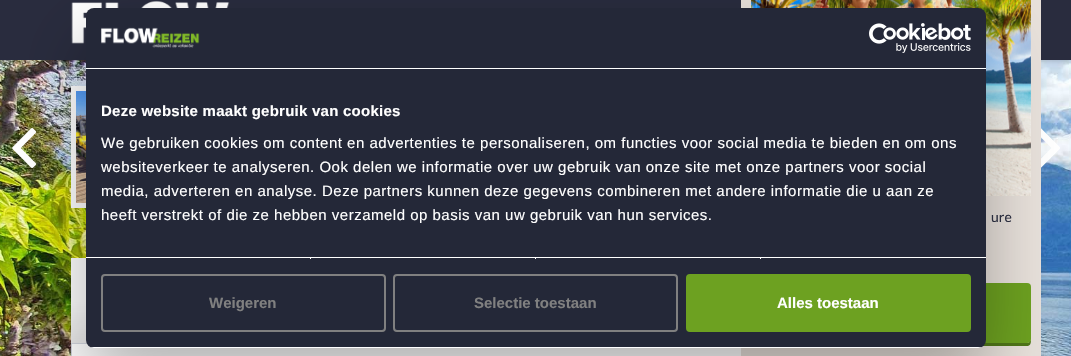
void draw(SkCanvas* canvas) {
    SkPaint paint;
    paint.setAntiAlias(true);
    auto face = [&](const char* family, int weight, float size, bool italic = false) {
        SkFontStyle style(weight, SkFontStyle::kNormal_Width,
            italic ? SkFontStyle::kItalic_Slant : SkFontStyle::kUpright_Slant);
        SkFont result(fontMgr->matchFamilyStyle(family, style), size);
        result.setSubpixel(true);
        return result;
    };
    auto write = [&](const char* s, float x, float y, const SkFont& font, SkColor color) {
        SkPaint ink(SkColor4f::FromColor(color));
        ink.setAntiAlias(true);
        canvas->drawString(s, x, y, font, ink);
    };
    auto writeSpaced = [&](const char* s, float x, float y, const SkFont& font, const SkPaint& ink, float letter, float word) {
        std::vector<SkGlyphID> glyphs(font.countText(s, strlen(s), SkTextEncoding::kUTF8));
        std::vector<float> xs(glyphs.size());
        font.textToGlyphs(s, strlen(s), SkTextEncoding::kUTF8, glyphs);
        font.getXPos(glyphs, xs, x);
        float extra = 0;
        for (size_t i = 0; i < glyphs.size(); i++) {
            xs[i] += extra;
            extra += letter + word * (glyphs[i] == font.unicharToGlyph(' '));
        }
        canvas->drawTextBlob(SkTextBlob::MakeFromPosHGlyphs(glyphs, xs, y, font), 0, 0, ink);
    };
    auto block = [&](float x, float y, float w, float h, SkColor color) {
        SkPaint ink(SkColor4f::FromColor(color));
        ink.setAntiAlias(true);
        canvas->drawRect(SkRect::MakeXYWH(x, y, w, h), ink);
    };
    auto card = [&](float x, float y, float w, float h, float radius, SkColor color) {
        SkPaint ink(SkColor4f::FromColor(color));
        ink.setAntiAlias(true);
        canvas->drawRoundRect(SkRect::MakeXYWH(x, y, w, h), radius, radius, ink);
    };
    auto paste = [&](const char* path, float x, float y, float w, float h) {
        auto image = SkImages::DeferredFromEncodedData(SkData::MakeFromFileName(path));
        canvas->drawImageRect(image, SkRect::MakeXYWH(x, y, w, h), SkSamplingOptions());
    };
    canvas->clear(SK_ColorWHITE);
    paste("pic2.png", 0, 60, 1071, 296);
    paint.setColor(SkColorSetARGB(64, 0, 0, 0));
    paint.setMaskFilter(SkMaskFilter::MakeBlur(kNormal_SkBlurStyle, 3));
    canvas->drawRect(SkRect::MakeXYWH(0, 0, 1071, 60), paint);
    paint.setMaskFilter(nullptr);
    block(0, 0, 1071, 60, SkColorSetRGB(41, 44, 62));
    paste("pic1.png", 71, 0, 159, 44);
    paste("pic3.png", 12, 128, 25, 40);
    paint.setStyle(SkPaint::kStroke_Style);
    paint.setStrokeWidth(5);
    paint.setColor(SK_ColorWHITE);
    canvas->drawRect(SkRect::MakeXYWH(73.5f, 88.5f, 205, 117), paint);
    paste("pic4.png", 76, 91, 10, 112);
    paste("pic5.png", 1041, 128, 19, 40);
    block(71, 258, 15, 43, SK_ColorWHITE);
    paint.setStyle(SkPaint::kFill_Style);
    {
        const SkColor colors[] = {SK_ColorWHITE, SkColorSetRGB(233, 233, 233)};
        const float stops[] = {0, 1};
        const SkPoint ends[] = {{174, 301}, {174, 343}};
        paint.setShader(SkGradientShader::MakeLinear(ends, colors, stops, 2, SkTileMode::kClamp));
        paint.setAlpha(255);
    }
    canvas->drawRect(SkRect::MakeXYWH(71, 301, 16, 42), paint);
    block(72, 344, 669, 12, SK_ColorWHITE);
    paint.setStyle(SkPaint::kStroke_Style);
    paint.setStrokeWidth(1);
    paint.setShader(nullptr);
    paint.setColor(SkColorSetRGB(210, 213, 222));
    canvas->drawRect(SkRect::MakeXYWH(71.5f, 343.5f, 689, 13), paint);
    block(741, 0, 300, 356, SkColorSetRGB(232, 225, 219));
    paste("pic8.png", 751, 0, 280, 196);
    paint.setStyle(SkPaint::kFill_Style);
    paint.setColor(SkColorSetRGB(80, 118, 24));
    canvas->drawPath(SkPathBuilder().moveTo(751, 339).cubicTo(751, 342, 751, 345, 754, 346).lineTo(1028, 346).cubicTo(1031, 345, 1031, 342, 1031, 339).cubicTo(1031, 341, 1029, 343, 1027, 343).lineTo(755, 343).cubicTo(753, 343, 751, 341, 751, 339).close().detach(), paint);
    card(751, 283, 280, 60, 4, SkColorSetRGB(109, 161, 32));
    paint.setColor(SkColorSetARGB(77, 0, 0, 0));
    paint.setMaskFilter(SkMaskFilter::MakeBlur(kNormal_SkBlurStyle, 34));
    canvas->drawRoundRect(SkRect::MakeXYWH(86, 40, 900, 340), 8, 8, paint);
    paint.setMaskFilter(nullptr);
    card(86, 8, 900, 340, 8, SkColorSetRGB(36, 40, 56));
    block(86, 68, 900, 1, SK_ColorWHITE);
    paste("pic6.png", 101, 27, 99, 21);
    paste("pic7.png", 869, 23, 102, 30);
    block(86, 257, 900, 1, SK_ColorWHITE);
    auto kFont1 = face("Liberation Sans", 700, 15);
    paint.setColor(SK_ColorWHITE);
    writeSpaced("Deze website maakt gebruik van cookies", 101, 116, kFont1, paint, 0.25f, 0);
    auto kFont2 = face("Liberation Sans", 400, 15);
    writeSpaced("We gebruiken cookies om content en advertenties te personaliseren, om functies voor social media te bieden en om ons", 101, 148, kFont2, paint, 0.5f, 0);
    writeSpaced("websiteverkeer te analyseren. Ook delen we informatie over uw gebruik van onze site met onze partners voor social", 101, 172, kFont2, paint, 0.5f, 0);
    writeSpaced("media, adverteren en analyse. Deze partners kunnen deze gegevens combineren met andere informatie die u aan ze", 101, 196, kFont2, paint, 0.5f, 0);
    writeSpaced("heeft verstrekt of die ze hebben verzameld op basis van uw gebruik van hun services.", 101, 220, kFont2, paint, 0.5f, 0);
    block(310, 258, 1, 1, SK_ColorWHITE);
    block(535, 258, 1, 1, SK_ColorWHITE);
    block(760, 258, 1, 1, SK_ColorWHITE);
    canvas->save();
    canvas->clipPath(SkPathBuilder().moveTo(94, 8).lineTo(978, 8).cubicTo(982.5f, 8, 986, 11.5f, 986, 16).lineTo(986, 340).cubicTo(986, 344.5f, 982.5f, 348, 978, 348).lineTo(94, 348).cubicTo(89.5f, 348, 86, 344.5f, 86, 340).lineTo(86, 16).cubicTo(86, 11.5f, 89.5f, 8, 94, 8).close().detach(), true);
    block(86, 347, 900, 1, SK_ColorWHITE);
    canvas->restore();
    paint.setStyle(SkPaint::kStroke_Style);
    paint.setStrokeWidth(2);
    paint.setColor(SkColorSetRGB(128, 128, 128));
    canvas->drawRoundRect(SkRect::MakeXYWH(102, 275, 283, 56), 3, 3, paint);
    write("Weigeren", 209, 308, kFont1, SkColorSetRGB(128, 128, 128));
    canvas->drawRoundRect(SkRect::MakeXYWH(394, 275, 283, 56), 3, 3, paint);
    write("Selectie toestaan", 474, 308, kFont1, SkColorSetRGB(128, 128, 128));
    paint.setStyle(SkPaint::kFill_Style);
    paint.setColor(SkColorSetRGB(109, 161, 33));
    canvas->drawRoundRect(SkRect::MakeXYWH(687, 275, 283, 56), 3, 3, paint);
    paint.setStyle(SkPaint::kStroke_Style);
    canvas->drawRoundRect(SkRect::MakeXYWH(687, 275, 283, 56), 3, 3, paint);
    write("Alles toestaan", 777, 308, kFont1, SK_ColorWHITE);
    auto kFont3 = face("Lato", 400, 14);
    write("ure", 991, 222, kFont3, SkColorSetRGB(41, 44, 61));
}
